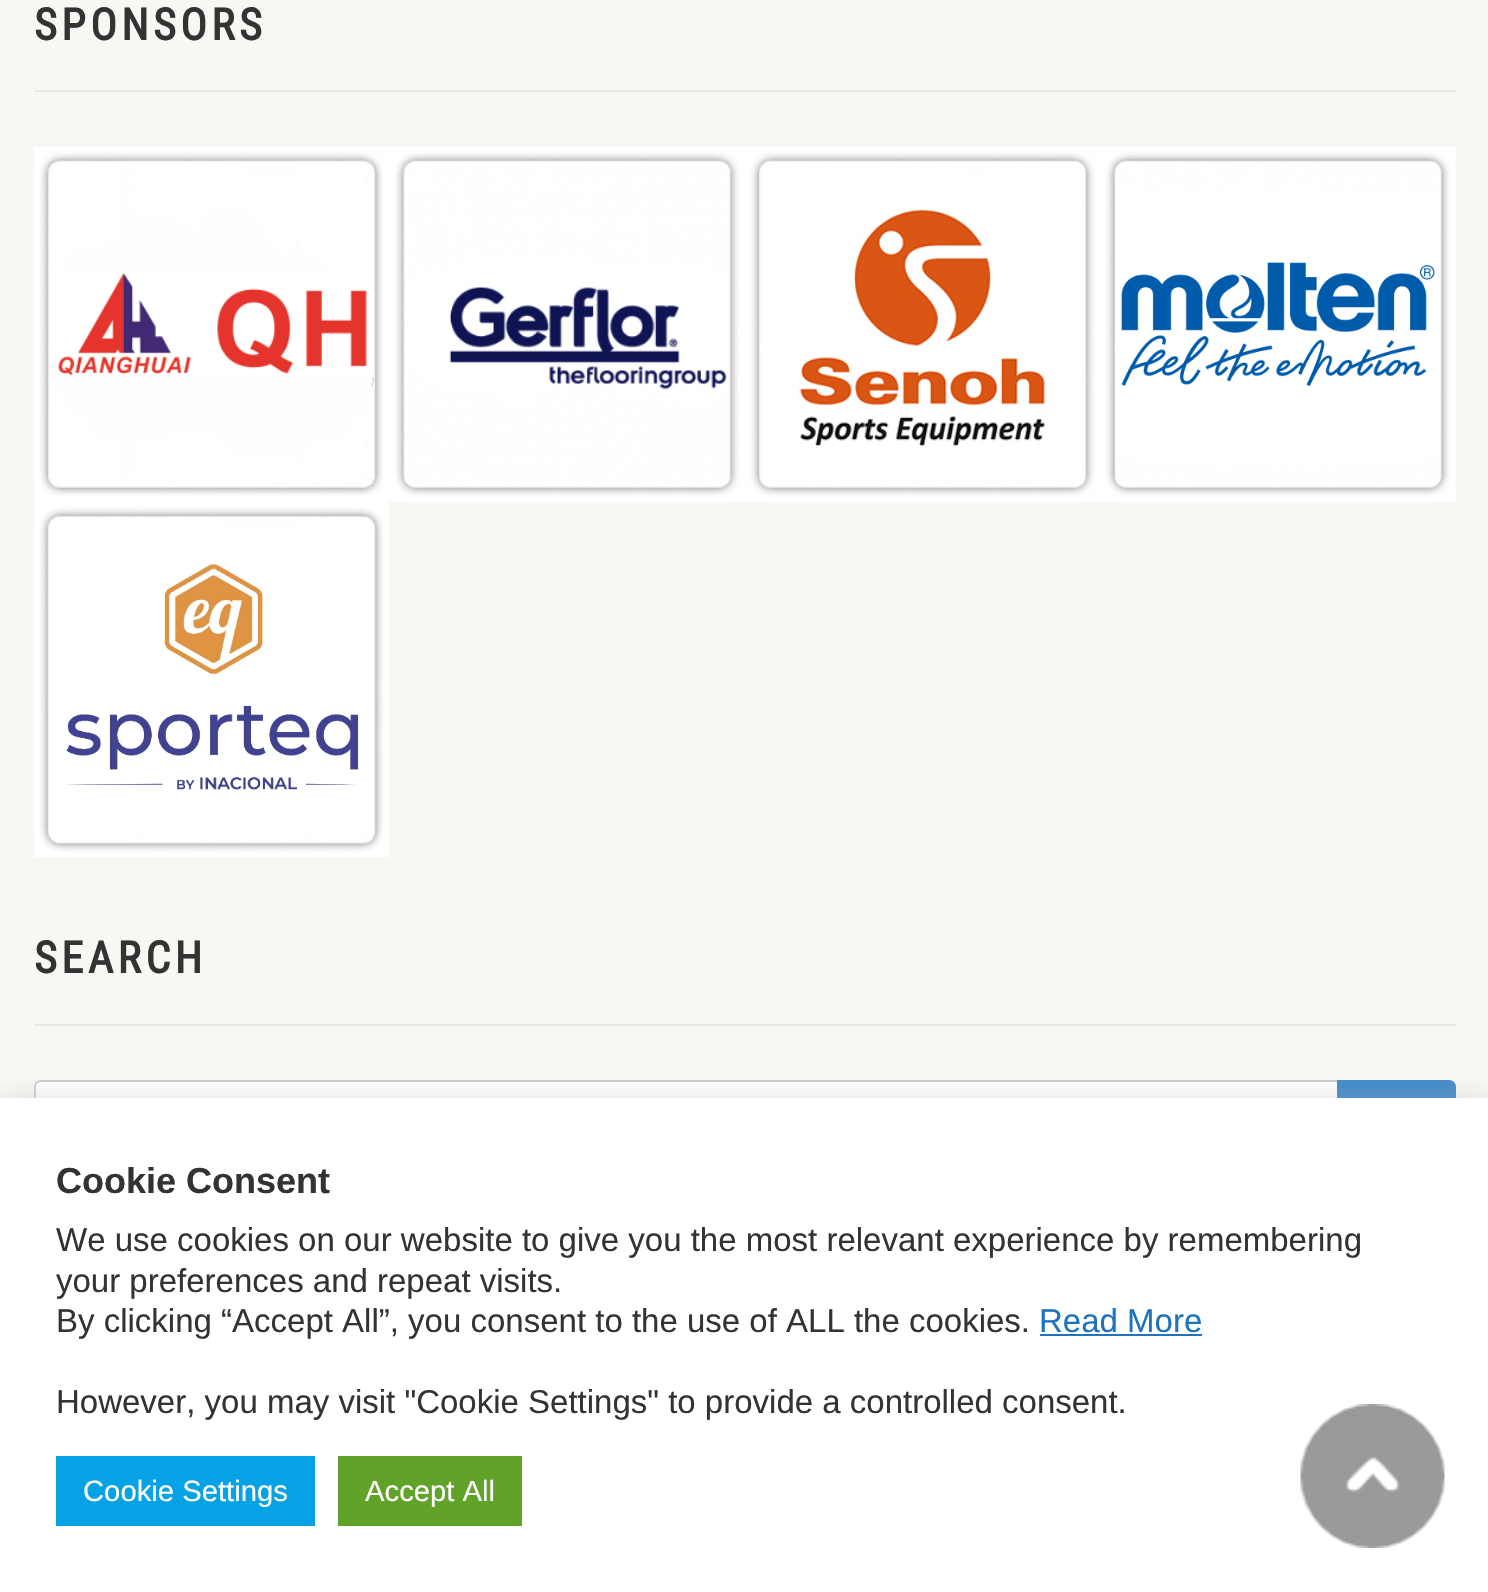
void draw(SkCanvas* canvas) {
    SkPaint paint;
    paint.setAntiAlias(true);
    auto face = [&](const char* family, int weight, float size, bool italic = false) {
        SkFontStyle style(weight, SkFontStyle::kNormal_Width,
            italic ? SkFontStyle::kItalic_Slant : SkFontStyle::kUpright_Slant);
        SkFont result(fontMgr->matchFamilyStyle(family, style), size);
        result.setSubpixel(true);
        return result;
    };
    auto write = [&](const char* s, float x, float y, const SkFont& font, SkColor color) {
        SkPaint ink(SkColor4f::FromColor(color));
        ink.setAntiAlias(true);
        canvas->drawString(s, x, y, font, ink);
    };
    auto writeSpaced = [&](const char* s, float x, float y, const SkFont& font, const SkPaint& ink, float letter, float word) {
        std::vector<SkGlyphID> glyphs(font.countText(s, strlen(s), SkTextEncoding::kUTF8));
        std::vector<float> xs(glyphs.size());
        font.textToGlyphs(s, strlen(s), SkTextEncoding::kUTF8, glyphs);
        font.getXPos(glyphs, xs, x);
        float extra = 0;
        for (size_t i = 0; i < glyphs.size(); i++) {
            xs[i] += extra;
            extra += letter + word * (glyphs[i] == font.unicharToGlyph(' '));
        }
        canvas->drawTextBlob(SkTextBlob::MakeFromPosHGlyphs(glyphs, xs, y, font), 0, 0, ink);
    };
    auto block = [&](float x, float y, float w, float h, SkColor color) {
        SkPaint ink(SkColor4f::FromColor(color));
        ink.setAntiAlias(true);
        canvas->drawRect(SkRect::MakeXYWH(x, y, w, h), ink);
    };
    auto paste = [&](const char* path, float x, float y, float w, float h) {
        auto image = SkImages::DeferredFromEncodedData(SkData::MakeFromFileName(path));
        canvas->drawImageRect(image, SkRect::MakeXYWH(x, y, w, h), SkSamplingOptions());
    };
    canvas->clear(SkColorSetRGB(248, 247, 243));
    auto kFont1 = face("Roboto Condensed", 700, 44);
    paint.setColor(SkColorSetRGB(51, 51, 51));
    writeSpaced("SPONSORS", 34, 40, kFont1, paint, 4.5f, 0);
    block(34, 90, 1422, 2, SkColorSetRGB(236, 234, 228));
    paste("pic1.png", 34, 147, 355, 355);
    paste("pic2.png", 389, 147, 356, 355);
    paste("pic3.png", 745, 147, 355, 355);
    paste("pic4.png", 1100, 147, 356, 355);
    paste("pic5.png", 34, 502, 355, 355);
    writeSpaced("SEARCH", 34, 973, kFont1, paint, 4.5f, 0);
    block(34, 1024, 1422, 2, SkColorSetRGB(236, 234, 228));
    paint.setColor(SK_ColorWHITE);
    canvas->drawPath(SkPathBuilder().moveTo(41, 1081).lineTo(1338, 1081).lineTo(1338, 1183).lineTo(41, 1183).cubicTo(37.5f, 1183, 35, 1180.5f, 35, 1177).lineTo(35, 1087).cubicTo(35, 1083.5f, 37.5f, 1081, 41, 1081).close().detach(), paint);
    paint.setStyle(SkPaint::kStroke_Style);
    paint.setStrokeWidth(2);
    paint.setColor(SkColorSetRGB(204, 204, 204));
    canvas->drawPath(SkPathBuilder().moveTo(41, 1081).lineTo(1338, 1081).lineTo(1338, 1183).lineTo(41, 1183).cubicTo(37.5f, 1183, 35, 1180.5f, 35, 1177).lineTo(35, 1087).cubicTo(35, 1083.5f, 37.5f, 1081, 41, 1081).close().detach(), paint);
    paint.setStyle(SkPaint::kFill_Style);
    paint.setColor(SkColorSetRGB(66, 139, 202));
    canvas->drawPath(SkPathBuilder().moveTo(1337, 1080).lineTo(1449, 1080).cubicTo(1453, 1080, 1456, 1083, 1456, 1087).lineTo(1456, 1177).cubicTo(1456, 1181, 1453, 1184, 1449, 1184).lineTo(1337, 1184).close().detach(), paint);
    paint.setColor(SkColorSetARGB(77, 172, 171, 171));
    paint.setMaskFilter(SkMaskFilter::MakeBlur(kNormal_SkBlurStyle, 11));
    canvas->drawRect(SkRect::MakeXYWH(0, 1096, 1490, 495), paint);
    paint.setMaskFilter(nullptr);
    block(0, 1098, 1488, 494, SK_ColorWHITE);
    auto kFont2 = face("Liberation Sans", 700, 36);
    write("Cookie Consent", 56, 1193, kFont2, SkColorSetRGB(51, 51, 51));
    auto kFont3 = face("Liberation Sans", 400, 33);
    write("We use cookies on our website to give you the most relevant experience by remembering", 56, 1251, kFont3, SkColorSetRGB(51, 51, 51));
    write("your preferences and repeat visits.", 56, 1292, kFont3, SkColorSetRGB(51, 51, 51));
    write("By clicking “Accept All”, you consent to the use of ALL the cookies.", 56, 1332, kFont3, SkColorSetRGB(51, 51, 51));
    write("Read More", 1039, 1332, kFont3, SkColorSetRGB(30, 115, 190));
    block(1040, 1334, 162, 2, SkColorSetRGB(30, 115, 190));
    write("However, you may visit \"Cookie Settings\" to provide a controlled consent.", 56, 1413, kFont3, SkColorSetRGB(51, 51, 51));
    block(56, 1456, 259, 70, SkColorSetRGB(6, 162, 229));
    auto kFont4 = face("Liberation Sans", 400, 29.25f);
    write("Cookie Settings", 83, 1501, kFont4, SK_ColorWHITE);
    block(338, 1456, 184, 70, SkColorSetRGB(97, 162, 41));
    write("Accept All", 365, 1501, kFont4, SK_ColorWHITE);
    paste("pic6.png", 1300, 1404, 145, 144);
}
